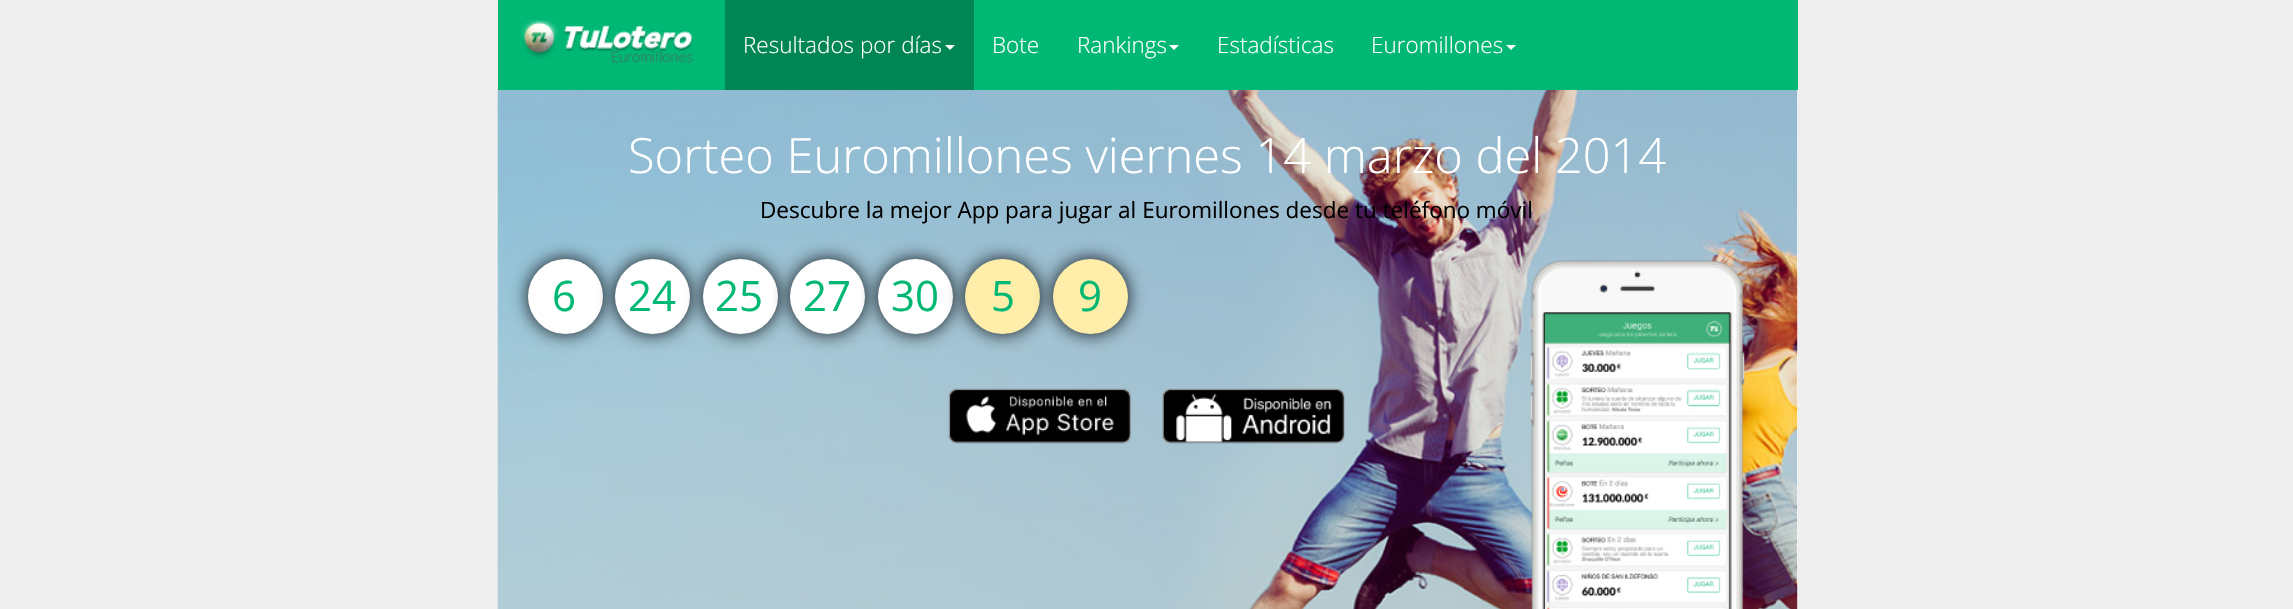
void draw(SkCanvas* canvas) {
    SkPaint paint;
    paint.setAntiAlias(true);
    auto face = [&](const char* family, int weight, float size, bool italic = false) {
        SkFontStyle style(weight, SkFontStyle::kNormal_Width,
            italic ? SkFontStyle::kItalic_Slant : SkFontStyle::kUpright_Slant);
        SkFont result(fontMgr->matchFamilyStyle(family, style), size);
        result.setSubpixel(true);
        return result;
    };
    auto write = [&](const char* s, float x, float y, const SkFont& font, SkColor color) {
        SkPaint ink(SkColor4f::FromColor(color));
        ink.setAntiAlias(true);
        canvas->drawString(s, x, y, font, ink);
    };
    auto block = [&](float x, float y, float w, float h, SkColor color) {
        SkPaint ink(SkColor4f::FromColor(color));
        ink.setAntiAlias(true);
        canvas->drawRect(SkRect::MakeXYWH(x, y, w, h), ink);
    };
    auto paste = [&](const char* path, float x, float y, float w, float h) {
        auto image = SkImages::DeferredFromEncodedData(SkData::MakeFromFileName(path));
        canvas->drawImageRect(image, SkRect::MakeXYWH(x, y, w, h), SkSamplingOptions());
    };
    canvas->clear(SkColorSetRGB(238, 238, 238));
    block(1797, 90, 1, 519, SK_ColorWHITE);
    paste("pic2.png", 497, 88, 1301, 521);
    block(498, 0, 1300, 90, SkColorSetRGB(0, 184, 116));
    paste("pic1.png", 521, 20, 172, 43);
    block(725, 0, 249, 90, SkColorSetRGB(0, 133, 84));
    auto kFont1 = face("Open Sans", 300, 22.5f);
    write("Resultados por días", 743, 53, kFont1, SK_ColorWHITE);
    paint.setColor(SK_ColorWHITE);
    canvas->drawPath(SkPathBuilder().moveTo(945, 45).lineTo(955, 45).lineTo(950, 50).close().detach(), paint);
    write("Bote", 992, 53, kFont1, SK_ColorWHITE);
    write("Rankings", 1077, 53, kFont1, SK_ColorWHITE);
    canvas->drawPath(SkPathBuilder().moveTo(1169, 45).lineTo(1179, 45).lineTo(1174, 50).close().detach(), paint);
    write("Estadísticas", 1217, 53, kFont1, SK_ColorWHITE);
    write("Euromillones", 1371, 53, kFont1, SK_ColorWHITE);
    canvas->drawPath(SkPathBuilder().moveTo(1506, 45).lineTo(1516, 45).lineTo(1511, 50).close().detach(), paint);
    auto kFont2 = face("Open Sans", 300, 48.75f);
    write("Sorteo Euromillones viernes 14 marzo del 2014", 628, 173, kFont2, SK_ColorWHITE);
    auto kFont3 = face("Open Sans", 400, 22.5f);
    write("Descubre la mejor App para jugar al Euromillones desde tu teléfono móvil", 760, 218, kFont3, SK_ColorBLACK);
    paint.setColor(SkColorSetARGB(230, 0, 0, 0));
    paint.setMaskFilter(SkMaskFilter::MakeBlur(kNormal_SkBlurStyle, 9));
    canvas->drawRoundRect(SkRect::MakeXYWH(528, 259, 75, 75), 37.5f, 37.5f, paint);
    paint.setMaskFilter(nullptr);
    paint.setColor(SK_ColorWHITE);
    canvas->drawCircle(565.5f, 296.5f, 37.5f, paint);
    auto kFont4 = face("Open Sans", 400, 42);
    write("6", 552, 311, kFont4, SkColorSetRGB(0, 184, 116));
    paint.setColor(SkColorSetARGB(230, 0, 0, 0));
    paint.setMaskFilter(SkMaskFilter::MakeBlur(kNormal_SkBlurStyle, 9));
    canvas->drawRoundRect(SkRect::MakeXYWH(615, 259, 75, 75), 37.5f, 37.5f, paint);
    paint.setMaskFilter(nullptr);
    paint.setColor(SK_ColorWHITE);
    canvas->drawCircle(652.5f, 296.5f, 37.5f, paint);
    write("24", 628, 311, kFont4, SkColorSetRGB(0, 184, 116));
    paint.setColor(SkColorSetARGB(230, 0, 0, 0));
    paint.setMaskFilter(SkMaskFilter::MakeBlur(kNormal_SkBlurStyle, 9));
    canvas->drawRoundRect(SkRect::MakeXYWH(703, 259, 75, 75), 37.5f, 37.5f, paint);
    paint.setMaskFilter(nullptr);
    paint.setColor(SK_ColorWHITE);
    canvas->drawCircle(740.5f, 296.5f, 37.5f, paint);
    write("25", 715, 311, kFont4, SkColorSetRGB(0, 184, 116));
    paint.setColor(SkColorSetARGB(230, 0, 0, 0));
    paint.setMaskFilter(SkMaskFilter::MakeBlur(kNormal_SkBlurStyle, 9));
    canvas->drawRoundRect(SkRect::MakeXYWH(790, 259, 75, 75), 37.5f, 37.5f, paint);
    paint.setMaskFilter(nullptr);
    paint.setColor(SK_ColorWHITE);
    canvas->drawCircle(827.5f, 296.5f, 37.5f, paint);
    write("27", 803, 311, kFont4, SkColorSetRGB(0, 184, 116));
    paint.setColor(SkColorSetARGB(230, 0, 0, 0));
    paint.setMaskFilter(SkMaskFilter::MakeBlur(kNormal_SkBlurStyle, 9));
    canvas->drawRoundRect(SkRect::MakeXYWH(878, 259, 75, 75), 37.5f, 37.5f, paint);
    paint.setMaskFilter(nullptr);
    paint.setColor(SK_ColorWHITE);
    canvas->drawCircle(915.5f, 296.5f, 37.5f, paint);
    write("30", 891, 311, kFont4, SkColorSetRGB(0, 184, 116));
    paint.setColor(SkColorSetARGB(230, 0, 0, 0));
    paint.setMaskFilter(SkMaskFilter::MakeBlur(kNormal_SkBlurStyle, 9));
    canvas->drawRoundRect(SkRect::MakeXYWH(965, 259, 75, 75), 37.5f, 37.5f, paint);
    paint.setMaskFilter(nullptr);
    paint.setColor(SkColorSetRGB(255, 238, 170));
    canvas->drawCircle(1002.5f, 296.5f, 37.5f, paint);
    write("5", 991, 311, kFont4, SkColorSetRGB(0, 184, 116));
    paint.setColor(SkColorSetARGB(230, 0, 0, 0));
    paint.setMaskFilter(SkMaskFilter::MakeBlur(kNormal_SkBlurStyle, 9));
    canvas->drawRoundRect(SkRect::MakeXYWH(1053, 259, 75, 75), 37.5f, 37.5f, paint);
    paint.setMaskFilter(nullptr);
    paint.setColor(SkColorSetRGB(255, 238, 170));
    canvas->drawCircle(1090.5f, 296.5f, 37.5f, paint);
    write("9", 1078, 311, kFont4, SkColorSetRGB(0, 184, 116));
    paste("pic3.png", 948, 388, 184, 56);
    paste("pic4.png", 1162, 388, 183, 56);
}
